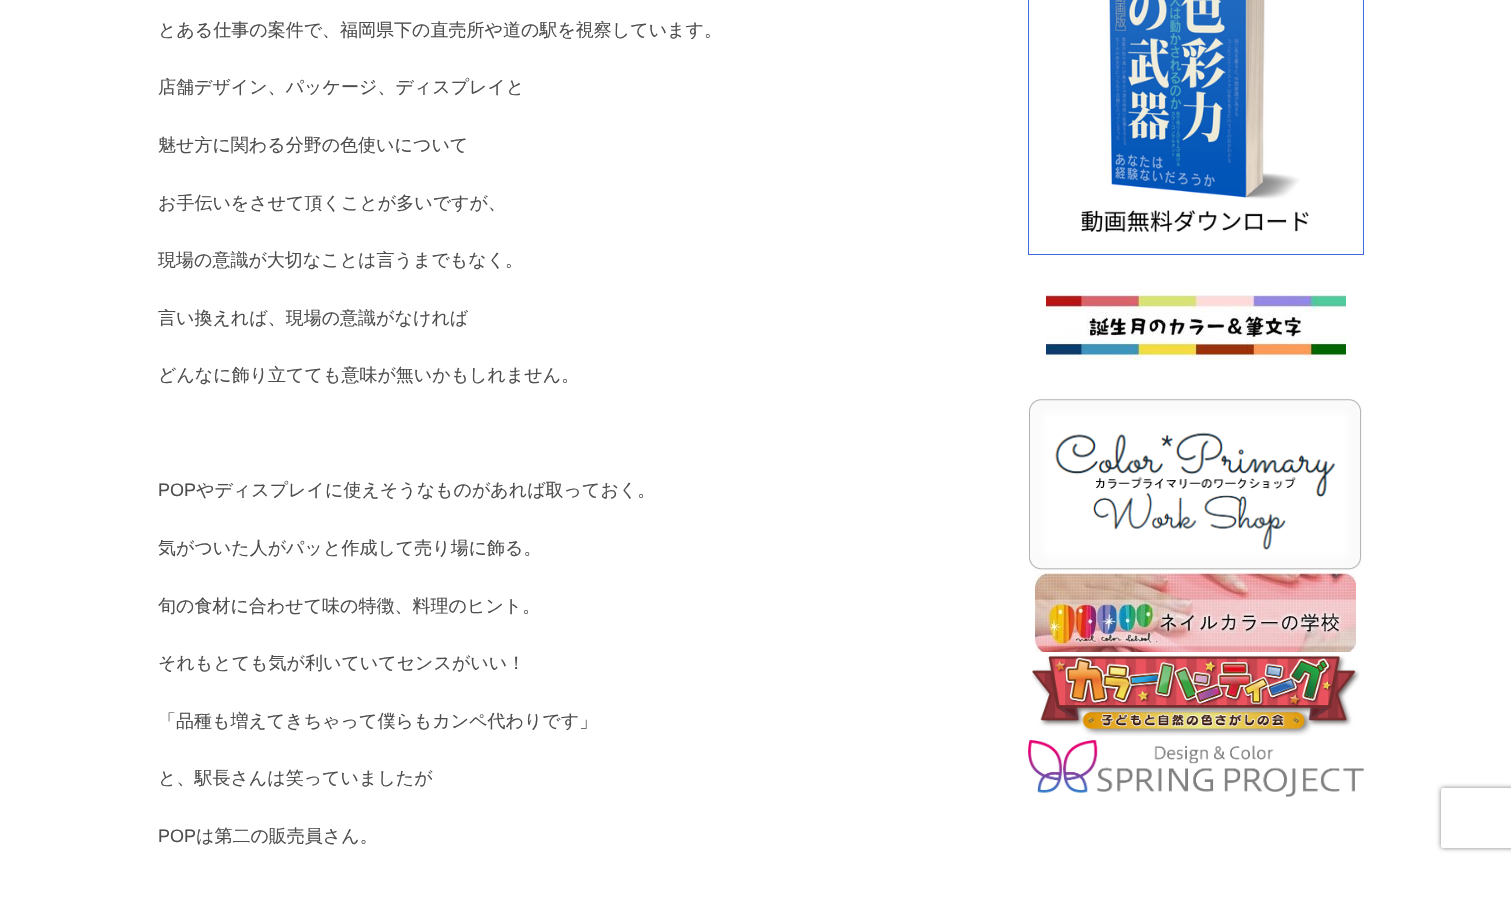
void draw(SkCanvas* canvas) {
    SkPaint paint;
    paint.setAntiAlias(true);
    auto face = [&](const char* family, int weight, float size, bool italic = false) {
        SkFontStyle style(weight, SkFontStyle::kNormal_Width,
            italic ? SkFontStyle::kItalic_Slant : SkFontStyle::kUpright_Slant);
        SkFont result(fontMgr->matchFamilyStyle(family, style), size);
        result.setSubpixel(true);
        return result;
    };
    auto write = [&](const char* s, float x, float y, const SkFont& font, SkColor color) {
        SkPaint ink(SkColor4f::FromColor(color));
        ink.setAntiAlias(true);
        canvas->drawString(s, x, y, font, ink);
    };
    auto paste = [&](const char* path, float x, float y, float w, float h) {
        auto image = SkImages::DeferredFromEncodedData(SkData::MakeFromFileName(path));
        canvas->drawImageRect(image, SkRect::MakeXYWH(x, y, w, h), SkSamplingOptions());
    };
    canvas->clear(SK_ColorWHITE);
    auto kFont1 = face("WenQuanYi Zen Hei", 500, 18);
    write("とある仕事の案件で、福岡県下の直売所や道の駅を視察しています。", 158, 36, kFont1, SkColorSetRGB(78, 78, 78));
    write("店舗デザイン、パッケージ、ディスプレイと", 158, 93, kFont1, SkColorSetRGB(78, 78, 78));
    write("魅せ方に関わる分野の色使いについて", 158, 151, kFont1, SkColorSetRGB(78, 78, 78));
    write("お手伝いをさせて頂くことが多いですが、", 158, 209, kFont1, SkColorSetRGB(78, 78, 78));
    write("現場の意識が大切なことは言うまでもなく。", 158, 266, kFont1, SkColorSetRGB(78, 78, 78));
    write("言い換えれば、現場の意識がなければ", 158, 324, kFont1, SkColorSetRGB(78, 78, 78));
    write("どんなに飾り立てても意味が無いかもしれません。", 158, 381, kFont1, SkColorSetRGB(78, 78, 78));
    auto kFont2 = face("Liberation Sans", 400, 18);
    write("POP", 158, 496, kFont2, SkColorSetRGB(78, 78, 78));
    write("やディスプレイに使えそうなものがあれば取っておく。", 196, 496, kFont1, SkColorSetRGB(78, 78, 78));
    write("気がついた人がパッと作成して売り場に飾る。", 158, 554, kFont1, SkColorSetRGB(78, 78, 78));
    write("旬の食材に合わせて味の特徴、料理のヒント。", 158, 612, kFont1, SkColorSetRGB(78, 78, 78));
    write("それもとても気が利いていてセンスがいい！", 158, 669, kFont1, SkColorSetRGB(78, 78, 78));
    write("「品種も増えてきちゃって僕らもカンペ代わりです」", 158, 727, kFont1, SkColorSetRGB(78, 78, 78));
    write("と、駅長さんは笑っていましたが", 158, 784, kFont1, SkColorSetRGB(78, 78, 78));
    write("POP", 158, 842, kFont2, SkColorSetRGB(78, 78, 78));
    write("は第二の販売員さん。", 196, 842, kFont1, SkColorSetRGB(78, 78, 78));
    paint.setStyle(SkPaint::kStroke_Style);
    paint.setStrokeWidth(1);
    paint.setColor(SkColorSetRGB(65, 105, 225));
    canvas->drawRect(SkRect::MakeXYWH(1028.5f, -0.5f, 335, 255), paint);
    paste("pic1.png", 1081, 0, 228, 233);
    paste("pic2.png", 1046, 289, 300, 72);
    paste("pic3.png", 1029, 399, 333, 172);
    paste("pic4.png", 1035, 573, 321, 79);
    paste("pic5.png", 1032, 655, 328, 81);
    paste("pic6.png", 1028, 740, 336, 57);
    canvas->save();
    canvas->clipPath(SkPathBuilder(SkPathFillType::kEvenOdd).moveTo(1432, 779).lineTo(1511, 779).lineTo(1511, 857).lineTo(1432, 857).close().moveTo(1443, 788).lineTo(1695, 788).cubicTo(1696, 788, 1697, 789, 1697, 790).lineTo(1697, 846).cubicTo(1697, 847, 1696, 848, 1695, 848).lineTo(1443, 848).cubicTo(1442, 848, 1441, 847, 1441, 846).lineTo(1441, 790).cubicTo(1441, 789, 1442, 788, 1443, 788).close().detach(), true);
    paint.setStyle(SkPaint::kFill_Style);
    paint.setColor(SkColorSetRGB(128, 128, 128));
    paint.setMaskFilter(SkMaskFilter::MakeBlur(kNormal_SkBlurStyle, 2.5f));
    canvas->drawRoundRect(SkRect::MakeXYWH(1441, 788, 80, 60), 2, 2, paint);
    paint.setMaskFilter(nullptr);
    canvas->restore();
}
